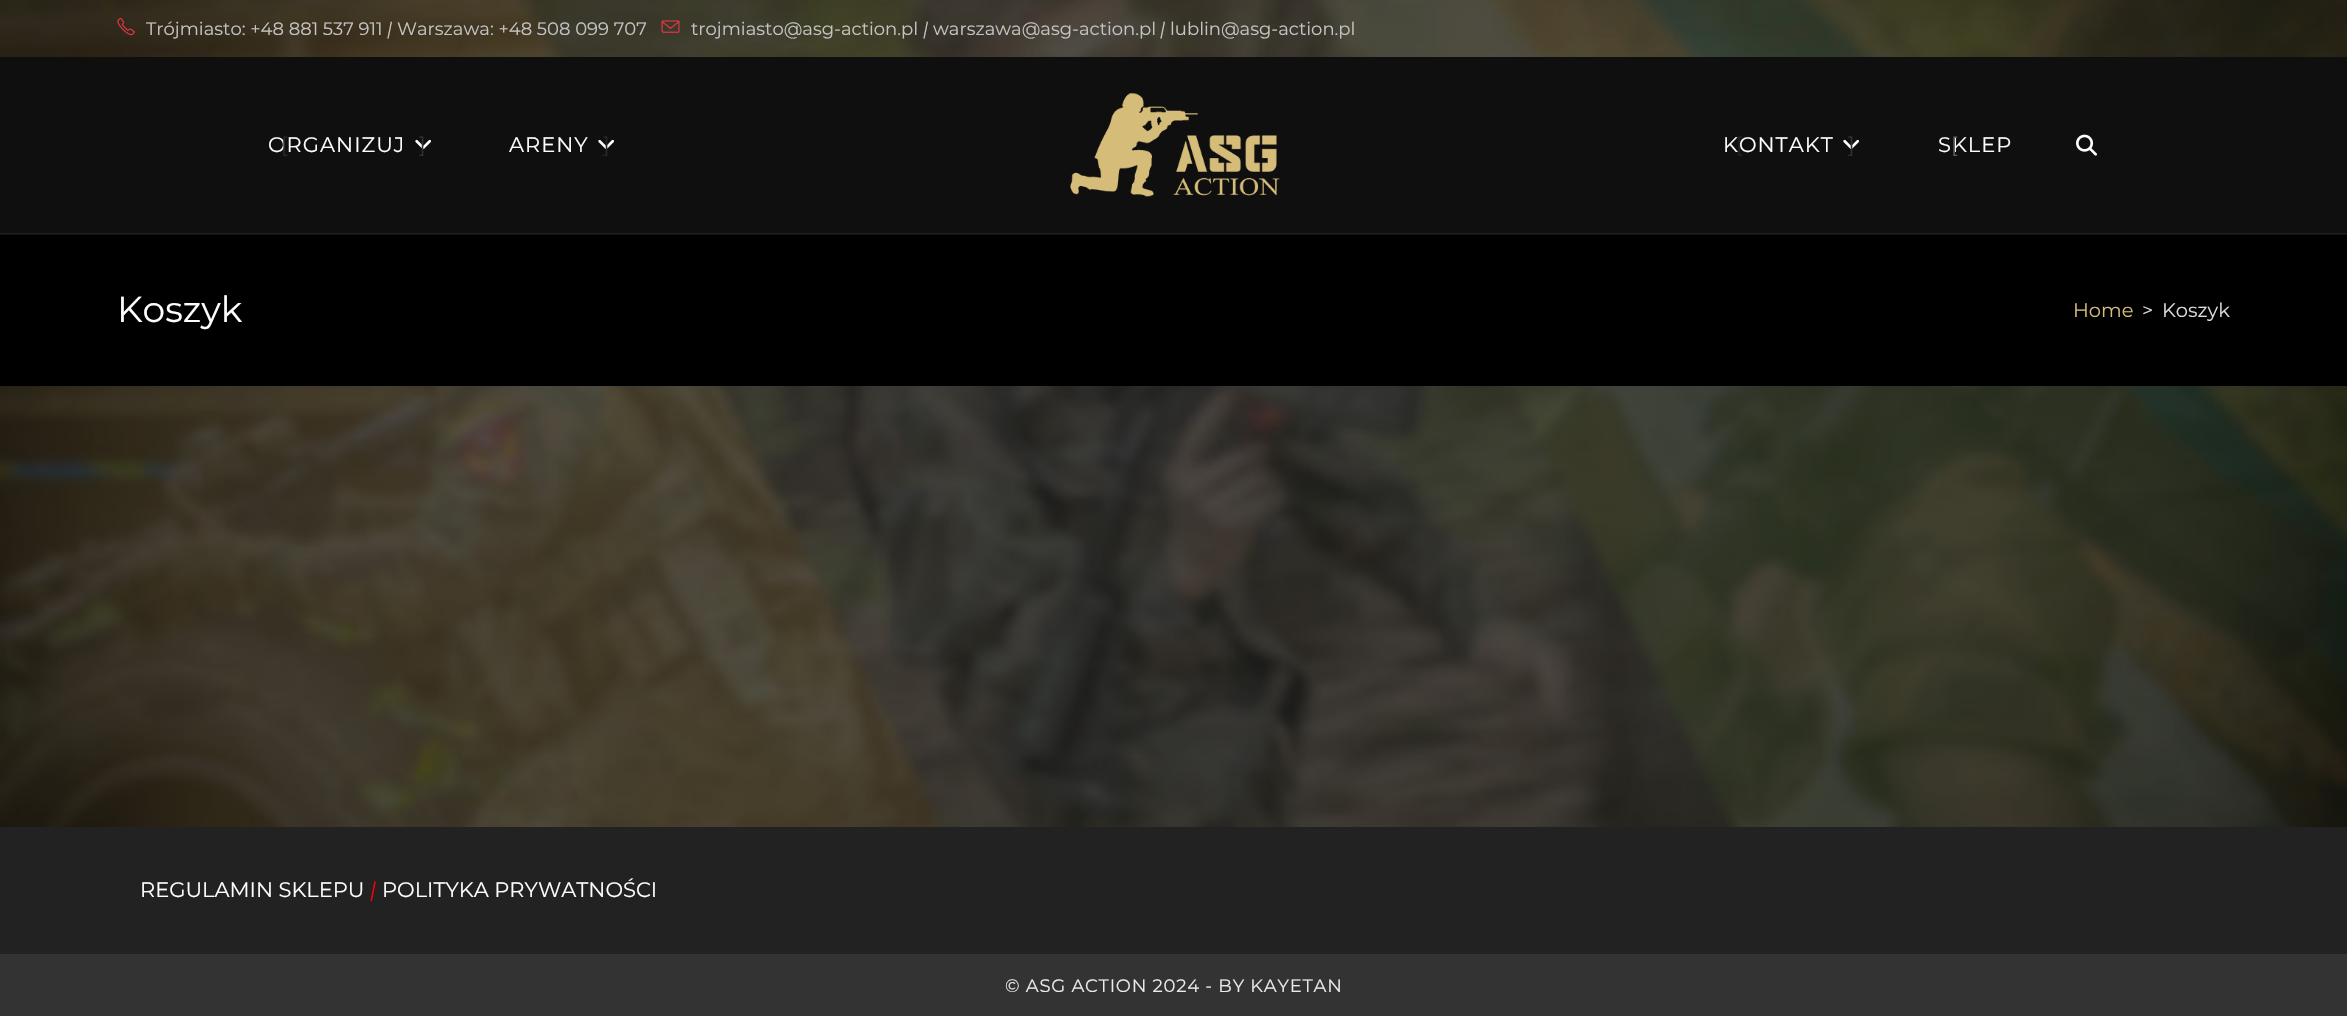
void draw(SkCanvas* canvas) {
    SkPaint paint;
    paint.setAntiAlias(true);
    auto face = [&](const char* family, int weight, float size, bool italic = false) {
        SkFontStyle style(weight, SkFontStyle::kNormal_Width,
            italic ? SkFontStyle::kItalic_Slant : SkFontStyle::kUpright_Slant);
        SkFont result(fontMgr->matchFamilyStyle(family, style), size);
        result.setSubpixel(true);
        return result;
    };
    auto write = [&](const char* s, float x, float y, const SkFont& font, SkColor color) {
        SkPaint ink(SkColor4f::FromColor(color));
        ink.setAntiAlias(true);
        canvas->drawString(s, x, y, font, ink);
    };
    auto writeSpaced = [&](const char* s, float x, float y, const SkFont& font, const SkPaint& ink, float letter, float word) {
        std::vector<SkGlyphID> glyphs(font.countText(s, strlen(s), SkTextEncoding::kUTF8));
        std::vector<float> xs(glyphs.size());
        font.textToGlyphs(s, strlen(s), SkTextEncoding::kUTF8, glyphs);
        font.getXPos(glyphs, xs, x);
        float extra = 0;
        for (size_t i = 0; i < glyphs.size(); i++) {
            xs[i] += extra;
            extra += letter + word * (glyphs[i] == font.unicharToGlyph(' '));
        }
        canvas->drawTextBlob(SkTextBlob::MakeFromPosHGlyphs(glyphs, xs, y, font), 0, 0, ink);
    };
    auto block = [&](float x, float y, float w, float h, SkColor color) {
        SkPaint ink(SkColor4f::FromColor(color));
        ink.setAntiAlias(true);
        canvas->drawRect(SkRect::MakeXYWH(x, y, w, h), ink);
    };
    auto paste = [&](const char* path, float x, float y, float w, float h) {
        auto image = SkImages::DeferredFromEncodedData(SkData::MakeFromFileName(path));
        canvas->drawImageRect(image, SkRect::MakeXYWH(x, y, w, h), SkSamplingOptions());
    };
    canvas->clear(SK_ColorWHITE);
    paste("pic1.png", 0, 0, 2347, 827);
    block(0, 0, 2347, 57, SkColorSetARGB(23, 221, 178, 113));
    paste("pic2.png", 117, 17, 18, 19);
    auto kFont1 = face("Montserrat", 400, 18);
    write("Trójmiasto: +48 881 537 911", 146, 35, kFont1, SkColorSetRGB(196, 196, 196));
    auto kFont2 = face("Montserrat", 400, 18, true);
    write("|", 387, 35, kFont2, SkColorSetRGB(196, 196, 196));
    write("Warszawa: +48 508 099 707", 397, 35, kFont1, SkColorSetRGB(196, 196, 196));
    paste("pic3.png", 661, 20, 19, 13);
    write("trojmiasto@asg-action.pl", 691, 35, kFont1, SkColorSetRGB(196, 196, 196));
    write("|", 923, 35, kFont2, SkColorSetRGB(196, 196, 196));
    write("warszawa@asg-action.pl", 933, 35, kFont1, SkColorSetRGB(196, 196, 196));
    write("|", 1160, 35, kFont2, SkColorSetRGB(196, 196, 196));
    write("lublin@asg-action.pl", 1170, 35, kFont1, SkColorSetRGB(196, 196, 196));
    block(0, 57, 2347, 177, SkColorSetRGB(15, 15, 15));
    block(0, 234, 2347, 152, SK_ColorBLACK);
    block(0, 233, 2347, 2, SkColorSetARGB(23, 221, 193, 128));
    auto kFont3 = face("Montserrat", 400, 21);
    paint.setColor(SK_ColorWHITE);
    writeSpaced("ORGANIZUJ", 268, 152, kFont3, paint, 1, 0);
    paint.setColor(SkColorSetRGB(40, 40, 40));
    writeSpaced("[", 281, 152, kFont3, paint, 1, 0);
    paste("pic4.png", 415, 139, 16, 10);
    paint.setColor(SkColorSetRGB(50, 50, 50));
    writeSpaced("]", 419, 152, kFont3, paint, 1, 0);
    paint.setColor(SK_ColorWHITE);
    writeSpaced("ARENY", 509, 152, kFont3, paint, 1, 0);
    paste("pic4.png", 598, 139, 16, 10);
    paint.setColor(SkColorSetRGB(40, 40, 40));
    writeSpaced("]", 603, 152, kFont3, paint, 1, 0);
    paste("pic5.png", 1070, 93, 210, 104);
    paint.setColor(SK_ColorWHITE);
    writeSpaced("KONTAKT", 1723, 152, kFont3, paint, 1, 0);
    paint.setColor(SkColorSetRGB(34, 34, 34));
    writeSpaced("[", 1736, 152, kFont3, paint, 1, 0);
    paste("pic4.png", 1843, 139, 16, 10);
    paint.setColor(SkColorSetRGB(50, 50, 50));
    writeSpaced("]", 1848, 152, kFont3, paint, 1, 0);
    paint.setColor(SK_ColorWHITE);
    writeSpaced("SKLEP", 1938, 152, kFont3, paint, 1, 0);
    paint.setColor(SkColorSetRGB(92, 92, 92));
    writeSpaced("[", 1951, 152, kFont3, paint, 1, 0);
    paste("pic6.png", 2076, 134, 21, 22);
    auto kFont4 = face("Montserrat", 400, 36);
    write("Koszyk", 117, 322, kFont4, SK_ColorWHITE);
    auto kFont5 = face("Montserrat", 400, 19.5f);
    write("Home", 2073, 317, kFont5, SkColorSetRGB(213, 188, 121));
    write(">", 2142, 317, kFont5, SkColorSetRGB(221, 221, 221));
    write("Koszyk", 2162, 317, kFont5, SkColorSetRGB(221, 221, 221));
    block(0, 827, 2347, 127, SkColorSetRGB(34, 34, 34));
    write("REGULAMIN SKLEPU", 140, 897, kFont3, SK_ColorWHITE);
    auto kFont6 = face("Montserrat", 400, 21, true);
    write("|", 370, 897, kFont6, SkColorSetRGB(255, 0, 0));
    write("POLITYKA PRYWATNOŚCI", 382, 897, kFont3, SK_ColorWHITE);
    block(0, 954, 2347, 62, SkColorSetRGB(51, 51, 51));
    paint.setColor(SkColorSetRGB(234, 234, 234));
    writeSpaced("© ASG ACTION 2024 - BY KAYETAN", 1005, 992, kFont1, paint, 0.75f, 0);
}
